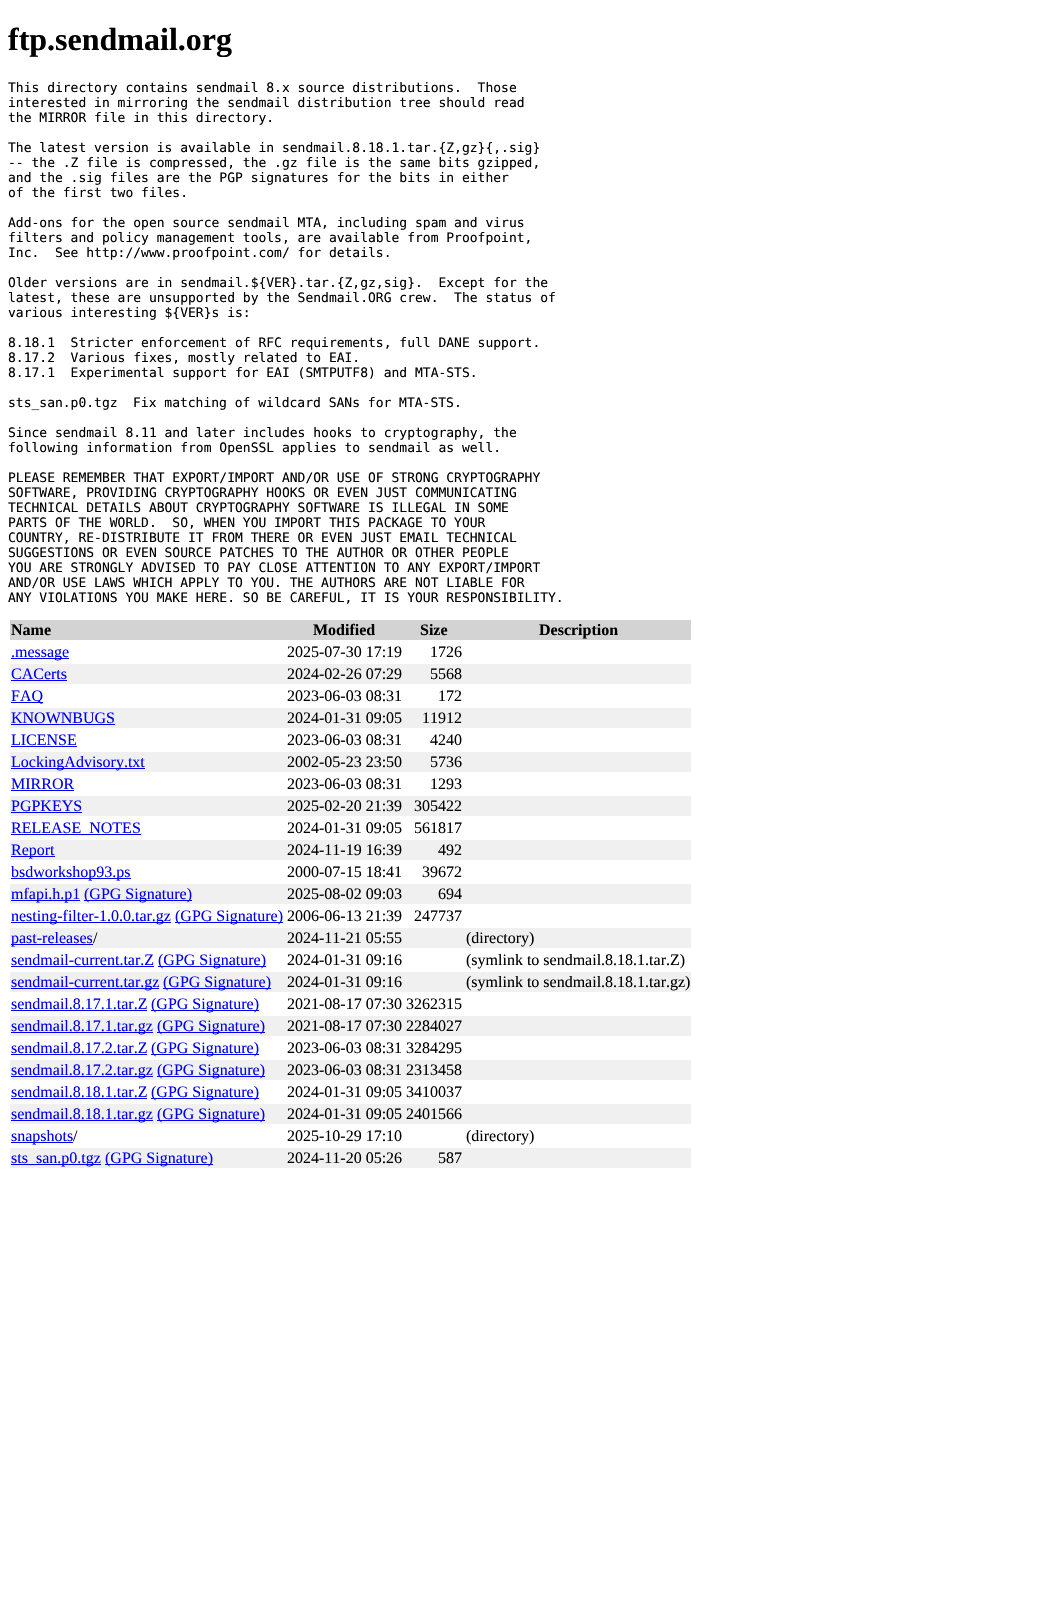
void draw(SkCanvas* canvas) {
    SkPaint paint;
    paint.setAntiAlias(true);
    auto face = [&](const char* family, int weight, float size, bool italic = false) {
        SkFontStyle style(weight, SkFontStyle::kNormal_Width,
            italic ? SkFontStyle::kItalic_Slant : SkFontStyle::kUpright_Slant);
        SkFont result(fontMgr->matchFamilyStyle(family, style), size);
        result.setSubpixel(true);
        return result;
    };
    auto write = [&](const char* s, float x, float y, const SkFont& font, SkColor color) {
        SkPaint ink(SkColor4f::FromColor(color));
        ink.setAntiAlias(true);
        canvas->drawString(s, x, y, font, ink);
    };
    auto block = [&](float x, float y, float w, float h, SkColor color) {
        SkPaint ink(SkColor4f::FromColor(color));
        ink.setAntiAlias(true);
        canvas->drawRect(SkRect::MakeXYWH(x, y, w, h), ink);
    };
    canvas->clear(SK_ColorWHITE);
    auto kFont1 = face("Liberation Serif", 700, 32);
    write("ftp.sendmail.org", 8, 50, kFont1, SK_ColorBLACK);
    auto kFont2 = face("DejaVu Sans Mono", 400, 13);
    write("This directory contains sendmail 8.x source distributions.  Those", 8, 92, kFont2, SK_ColorBLACK);
    write("interested in mirroring the sendmail distribution tree should read", 8, 107, kFont2, SK_ColorBLACK);
    write("the MIRROR file in this directory.", 8, 122, kFont2, SK_ColorBLACK);
    write("The latest version is available in sendmail.8.18.1.tar.{Z,gz}{,.sig}", 8, 152, kFont2, SK_ColorBLACK);
    write("-- the .Z file is compressed, the .gz file is the same bits gzipped,", 8, 167, kFont2, SK_ColorBLACK);
    write("and the .sig files are the PGP signatures for the bits in either", 8, 182, kFont2, SK_ColorBLACK);
    write("of the first two files.", 8, 197, kFont2, SK_ColorBLACK);
    write("Add-ons for the open source sendmail MTA, including spam and virus", 8, 227, kFont2, SK_ColorBLACK);
    write("filters and policy management tools, are available from Proofpoint,", 8, 242, kFont2, SK_ColorBLACK);
    write("Inc.  See http://www.proofpoint.com/ for details.", 8, 257, kFont2, SK_ColorBLACK);
    write("Older versions are in sendmail.${VER}.tar.{Z,gz,sig}.  Except for the", 8, 287, kFont2, SK_ColorBLACK);
    write("latest, these are unsupported by the Sendmail.ORG crew.  The status of", 8, 302, kFont2, SK_ColorBLACK);
    write("various interesting ${VER}s is:", 8, 317, kFont2, SK_ColorBLACK);
    write("8.18.1  Stricter enforcement of RFC requirements, full DANE support.", 8, 347, kFont2, SK_ColorBLACK);
    write("8.17.2  Various fixes, mostly related to EAI.", 8, 362, kFont2, SK_ColorBLACK);
    write("8.17.1  Experimental support for EAI (SMTPUTF8) and MTA-STS.", 8, 377, kFont2, SK_ColorBLACK);
    write("sts_san.p0.tgz", 8, 407, kFont2, SK_ColorBLACK);
    write("Fix matching of wildcard SANs for MTA-STS.", 133, 407, kFont2, SK_ColorBLACK);
    write("Since sendmail 8.11 and later includes hooks to cryptography, the", 8, 437, kFont2, SK_ColorBLACK);
    write("following information from OpenSSL applies to sendmail as well.", 8, 452, kFont2, SK_ColorBLACK);
    write("PLEASE REMEMBER THAT EXPORT/IMPORT AND/OR USE OF STRONG CRYPTOGRAPHY", 8, 482, kFont2, SK_ColorBLACK);
    write("SOFTWARE, PROVIDING CRYPTOGRAPHY HOOKS OR EVEN JUST COMMUNICATING", 8, 497, kFont2, SK_ColorBLACK);
    write("TECHNICAL DETAILS ABOUT CRYPTOGRAPHY SOFTWARE IS ILLEGAL IN SOME", 8, 512, kFont2, SK_ColorBLACK);
    write("PARTS OF THE WORLD.  SO, WHEN YOU IMPORT THIS PACKAGE TO YOUR", 8, 527, kFont2, SK_ColorBLACK);
    write("COUNTRY, RE-DISTRIBUTE IT FROM THERE OR EVEN JUST EMAIL TECHNICAL", 8, 542, kFont2, SK_ColorBLACK);
    write("SUGGESTIONS OR EVEN SOURCE PATCHES TO THE AUTHOR OR OTHER PEOPLE", 8, 557, kFont2, SK_ColorBLACK);
    write("YOU ARE STRONGLY ADVISED TO PAY CLOSE ATTENTION TO ANY EXPORT/IMPORT", 8, 572, kFont2, SK_ColorBLACK);
    write("AND/OR USE LAWS WHICH APPLY TO YOU. THE AUTHORS ARE NOT LIABLE FOR", 8, 587, kFont2, SK_ColorBLACK);
    write("ANY VIOLATIONS YOU MAKE HERE. SO BE CAREFUL, IT IS YOUR RESPONSIBILITY.", 8, 602, kFont2, SK_ColorBLACK);
    block(10, 620, 681, 20, SkColorSetRGB(211, 211, 211));
    auto kFont3 = face("Liberation Serif", 700, 16);
    write("Name", 11, 635, kFont3, SK_ColorBLACK);
    write("Modified", 313, 635, kFont3, SK_ColorBLACK);
    write("Size", 420, 635, kFont3, SK_ColorBLACK);
    write("Description", 539, 635, kFont3, SK_ColorBLACK);
    block(11, 658, 58, 1, SkColorSetRGB(0, 0, 238));
    auto kFont4 = face("Liberation Serif", 400, 16);
    write(".message", 11, 657, kFont4, SkColorSetRGB(0, 0, 238));
    write("2025-07-30 17:19", 287, 657, kFont4, SK_ColorBLACK);
    write("1726", 430, 657, kFont4, SK_ColorBLACK);
    block(10, 664, 681, 20, SkColorSetRGB(240, 240, 240));
    write("CACerts", 11, 679, kFont4, SkColorSetRGB(0, 0, 238));
    block(11, 680, 56, 1, SkColorSetRGB(0, 0, 238));
    write("2024-02-26 07:29", 287, 679, kFont4, SK_ColorBLACK);
    write("5568", 430, 679, kFont4, SK_ColorBLACK);
    block(11, 702, 32, 1, SkColorSetRGB(0, 0, 238));
    write("FAQ", 11, 701, kFont4, SkColorSetRGB(0, 0, 238));
    write("2023-06-03 08:31", 287, 701, kFont4, SK_ColorBLACK);
    write("172", 438, 701, kFont4, SK_ColorBLACK);
    block(10, 708, 681, 20, SkColorSetRGB(240, 240, 240));
    write("KNOWNBUGS", 11, 723, kFont4, SkColorSetRGB(0, 0, 238));
    block(11, 724, 104, 1, SkColorSetRGB(0, 0, 238));
    write("2024-01-31 09:05", 287, 723, kFont4, SK_ColorBLACK);
    write("11912", 422, 723, kFont4, SK_ColorBLACK);
    write("LICENSE", 11, 745, kFont4, SkColorSetRGB(0, 0, 238));
    block(11, 746, 66, 1, SkColorSetRGB(0, 0, 238));
    write("2023-06-03 08:31", 287, 745, kFont4, SK_ColorBLACK);
    write("4240", 430, 745, kFont4, SK_ColorBLACK);
    block(10, 752, 681, 20, SkColorSetRGB(240, 240, 240));
    block(11, 768, 134, 1, SkColorSetRGB(0, 0, 238));
    write("LockingAdvisory.txt", 11, 767, kFont4, SkColorSetRGB(0, 0, 238));
    write("2002-05-23 23:50", 287, 767, kFont4, SK_ColorBLACK);
    write("5736", 430, 767, kFont4, SK_ColorBLACK);
    write("MIRROR", 11, 789, kFont4, SkColorSetRGB(0, 0, 238));
    block(11, 790, 63, 1, SkColorSetRGB(0, 0, 238));
    write("2023-06-03 08:31", 287, 789, kFont4, SK_ColorBLACK);
    write("1293", 430, 789, kFont4, SK_ColorBLACK);
    block(10, 796, 681, 20, SkColorSetRGB(240, 240, 240));
    write("PGPKEYS", 11, 811, kFont4, SkColorSetRGB(0, 0, 238));
    block(11, 812, 71, 1, SkColorSetRGB(0, 0, 238));
    write("2025-02-20 21:39", 287, 811, kFont4, SK_ColorBLACK);
    write("305422", 414, 811, kFont4, SK_ColorBLACK);
    block(11, 834, 130, 1, SkColorSetRGB(0, 0, 238));
    write("RELEASE_NOTES", 11, 833, kFont4, SkColorSetRGB(0, 0, 238));
    write("2024-01-31 09:05", 287, 833, kFont4, SK_ColorBLACK);
    write("561817", 414, 833, kFont4, SK_ColorBLACK);
    block(10, 840, 681, 20, SkColorSetRGB(240, 240, 240));
    block(11, 856, 44, 1, SkColorSetRGB(0, 0, 238));
    write("Report", 11, 855, kFont4, SkColorSetRGB(0, 0, 238));
    write("2024-11-19 16:39", 287, 855, kFont4, SK_ColorBLACK);
    write("492", 438, 855, kFont4, SK_ColorBLACK);
    block(11, 878, 120, 1, SkColorSetRGB(0, 0, 238));
    write("bsdworkshop93.ps", 11, 877, kFont4, SkColorSetRGB(0, 0, 238));
    write("2000-07-15 18:41", 287, 877, kFont4, SK_ColorBLACK);
    write("39672", 422, 877, kFont4, SK_ColorBLACK);
    block(10, 884, 681, 20, SkColorSetRGB(240, 240, 240));
    block(11, 900, 69, 1, SkColorSetRGB(0, 0, 238));
    write("mfapi.h.p1", 11, 899, kFont4, SkColorSetRGB(0, 0, 238));
    block(84, 900, 108, 1, SkColorSetRGB(0, 0, 238));
    write("(GPG Signature)", 84, 899, kFont4, SkColorSetRGB(0, 0, 238));
    write("2025-08-02 09:03", 287, 899, kFont4, SK_ColorBLACK);
    write("694", 438, 899, kFont4, SK_ColorBLACK);
    block(11, 922, 160, 1, SkColorSetRGB(0, 0, 238));
    write("nesting-filter-1.0.0.tar.gz", 11, 921, kFont4, SkColorSetRGB(0, 0, 238));
    block(175, 922, 108, 1, SkColorSetRGB(0, 0, 238));
    write("(GPG Signature)", 175, 921, kFont4, SkColorSetRGB(0, 0, 238));
    write("2006-06-13 21:39", 287, 921, kFont4, SK_ColorBLACK);
    write("247737", 414, 921, kFont4, SK_ColorBLACK);
    block(10, 928, 681, 20, SkColorSetRGB(240, 240, 240));
    block(11, 944, 82, 1, SkColorSetRGB(0, 0, 238));
    write("past-releases", 11, 943, kFont4, SkColorSetRGB(0, 0, 238));
    write("/", 93, 943, kFont4, SK_ColorBLACK);
    write("2024-11-21 05:55", 287, 943, kFont4, SK_ColorBLACK);
    write("(directory)", 466, 943, kFont4, SK_ColorBLACK);
    write("sendmail-current.tar.Z", 11, 965, kFont4, SkColorSetRGB(0, 0, 238));
    block(11, 966, 143, 1, SkColorSetRGB(0, 0, 238));
    block(158, 966, 108, 1, SkColorSetRGB(0, 0, 238));
    write("(GPG Signature)", 158, 965, kFont4, SkColorSetRGB(0, 0, 238));
    write("2024-01-31 09:16", 287, 965, kFont4, SK_ColorBLACK);
    write("(symlink to sendmail.8.18.1.tar.Z)", 466, 965, kFont4, SK_ColorBLACK);
    block(10, 972, 681, 20, SkColorSetRGB(240, 240, 240));
    block(11, 988, 148, 1, SkColorSetRGB(0, 0, 238));
    write("sendmail-current.tar.gz", 11, 987, kFont4, SkColorSetRGB(0, 0, 238));
    block(163, 988, 108, 1, SkColorSetRGB(0, 0, 238));
    write("(GPG Signature)", 163, 987, kFont4, SkColorSetRGB(0, 0, 238));
    write("2024-01-31 09:16", 287, 987, kFont4, SK_ColorBLACK);
    write("(symlink to sendmail.8.18.1.tar.gz)", 466, 987, kFont4, SK_ColorBLACK);
    write("sendmail.8.17.1.tar.Z", 11, 1009, kFont4, SkColorSetRGB(0, 0, 238));
    block(11, 1010, 136, 1, SkColorSetRGB(0, 0, 238));
    block(151, 1010, 108, 1, SkColorSetRGB(0, 0, 238));
    write("(GPG Signature)", 151, 1009, kFont4, SkColorSetRGB(0, 0, 238));
    write("2021-08-17 07:30 3262315", 287, 1009, kFont4, SK_ColorBLACK);
    block(10, 1016, 681, 20, SkColorSetRGB(240, 240, 240));
    block(11, 1032, 142, 1, SkColorSetRGB(0, 0, 238));
    write("sendmail.8.17.1.tar.gz", 11, 1031, kFont4, SkColorSetRGB(0, 0, 238));
    block(157, 1032, 108, 1, SkColorSetRGB(0, 0, 238));
    write("(GPG Signature)", 157, 1031, kFont4, SkColorSetRGB(0, 0, 238));
    write("2021-08-17 07:30 2284027", 287, 1031, kFont4, SK_ColorBLACK);
    write("sendmail.8.17.2.tar.Z", 11, 1053, kFont4, SkColorSetRGB(0, 0, 238));
    block(11, 1054, 136, 1, SkColorSetRGB(0, 0, 238));
    block(151, 1054, 108, 1, SkColorSetRGB(0, 0, 238));
    write("(GPG Signature)", 151, 1053, kFont4, SkColorSetRGB(0, 0, 238));
    write("2023-06-03 08:31 3284295", 287, 1053, kFont4, SK_ColorBLACK);
    block(10, 1060, 681, 20, SkColorSetRGB(240, 240, 240));
    block(11, 1076, 142, 1, SkColorSetRGB(0, 0, 238));
    write("sendmail.8.17.2.tar.gz", 11, 1075, kFont4, SkColorSetRGB(0, 0, 238));
    block(157, 1076, 108, 1, SkColorSetRGB(0, 0, 238));
    write("(GPG Signature)", 157, 1075, kFont4, SkColorSetRGB(0, 0, 238));
    write("2023-06-03 08:31 2313458", 287, 1075, kFont4, SK_ColorBLACK);
    write("sendmail.8.18.1.tar.Z", 11, 1097, kFont4, SkColorSetRGB(0, 0, 238));
    block(11, 1098, 136, 1, SkColorSetRGB(0, 0, 238));
    block(151, 1098, 108, 1, SkColorSetRGB(0, 0, 238));
    write("(GPG Signature)", 151, 1097, kFont4, SkColorSetRGB(0, 0, 238));
    write("2024-01-31 09:05 3410037", 287, 1097, kFont4, SK_ColorBLACK);
    block(10, 1104, 681, 20, SkColorSetRGB(240, 240, 240));
    block(11, 1120, 142, 1, SkColorSetRGB(0, 0, 238));
    write("sendmail.8.18.1.tar.gz", 11, 1119, kFont4, SkColorSetRGB(0, 0, 238));
    block(157, 1120, 108, 1, SkColorSetRGB(0, 0, 238));
    write("(GPG Signature)", 157, 1119, kFont4, SkColorSetRGB(0, 0, 238));
    write("2024-01-31 09:05 2401566", 287, 1119, kFont4, SK_ColorBLACK);
    block(11, 1142, 62, 1, SkColorSetRGB(0, 0, 238));
    write("snapshots", 11, 1141, kFont4, SkColorSetRGB(0, 0, 238));
    write("/", 73, 1141, kFont4, SK_ColorBLACK);
    write("2025-10-29 17:10", 287, 1141, kFont4, SK_ColorBLACK);
    write("(directory)", 466, 1141, kFont4, SK_ColorBLACK);
    block(10, 1148, 681, 20, SkColorSetRGB(240, 240, 240));
    block(11, 1164, 90, 1, SkColorSetRGB(0, 0, 238));
    write("sts_san.p0.tgz", 11, 1163, kFont4, SkColorSetRGB(0, 0, 238));
    block(105, 1164, 108, 1, SkColorSetRGB(0, 0, 238));
    write("(GPG Signature)", 105, 1163, kFont4, SkColorSetRGB(0, 0, 238));
    write("2024-11-20 05:26", 287, 1163, kFont4, SK_ColorBLACK);
    write("587", 438, 1163, kFont4, SK_ColorBLACK);
}
